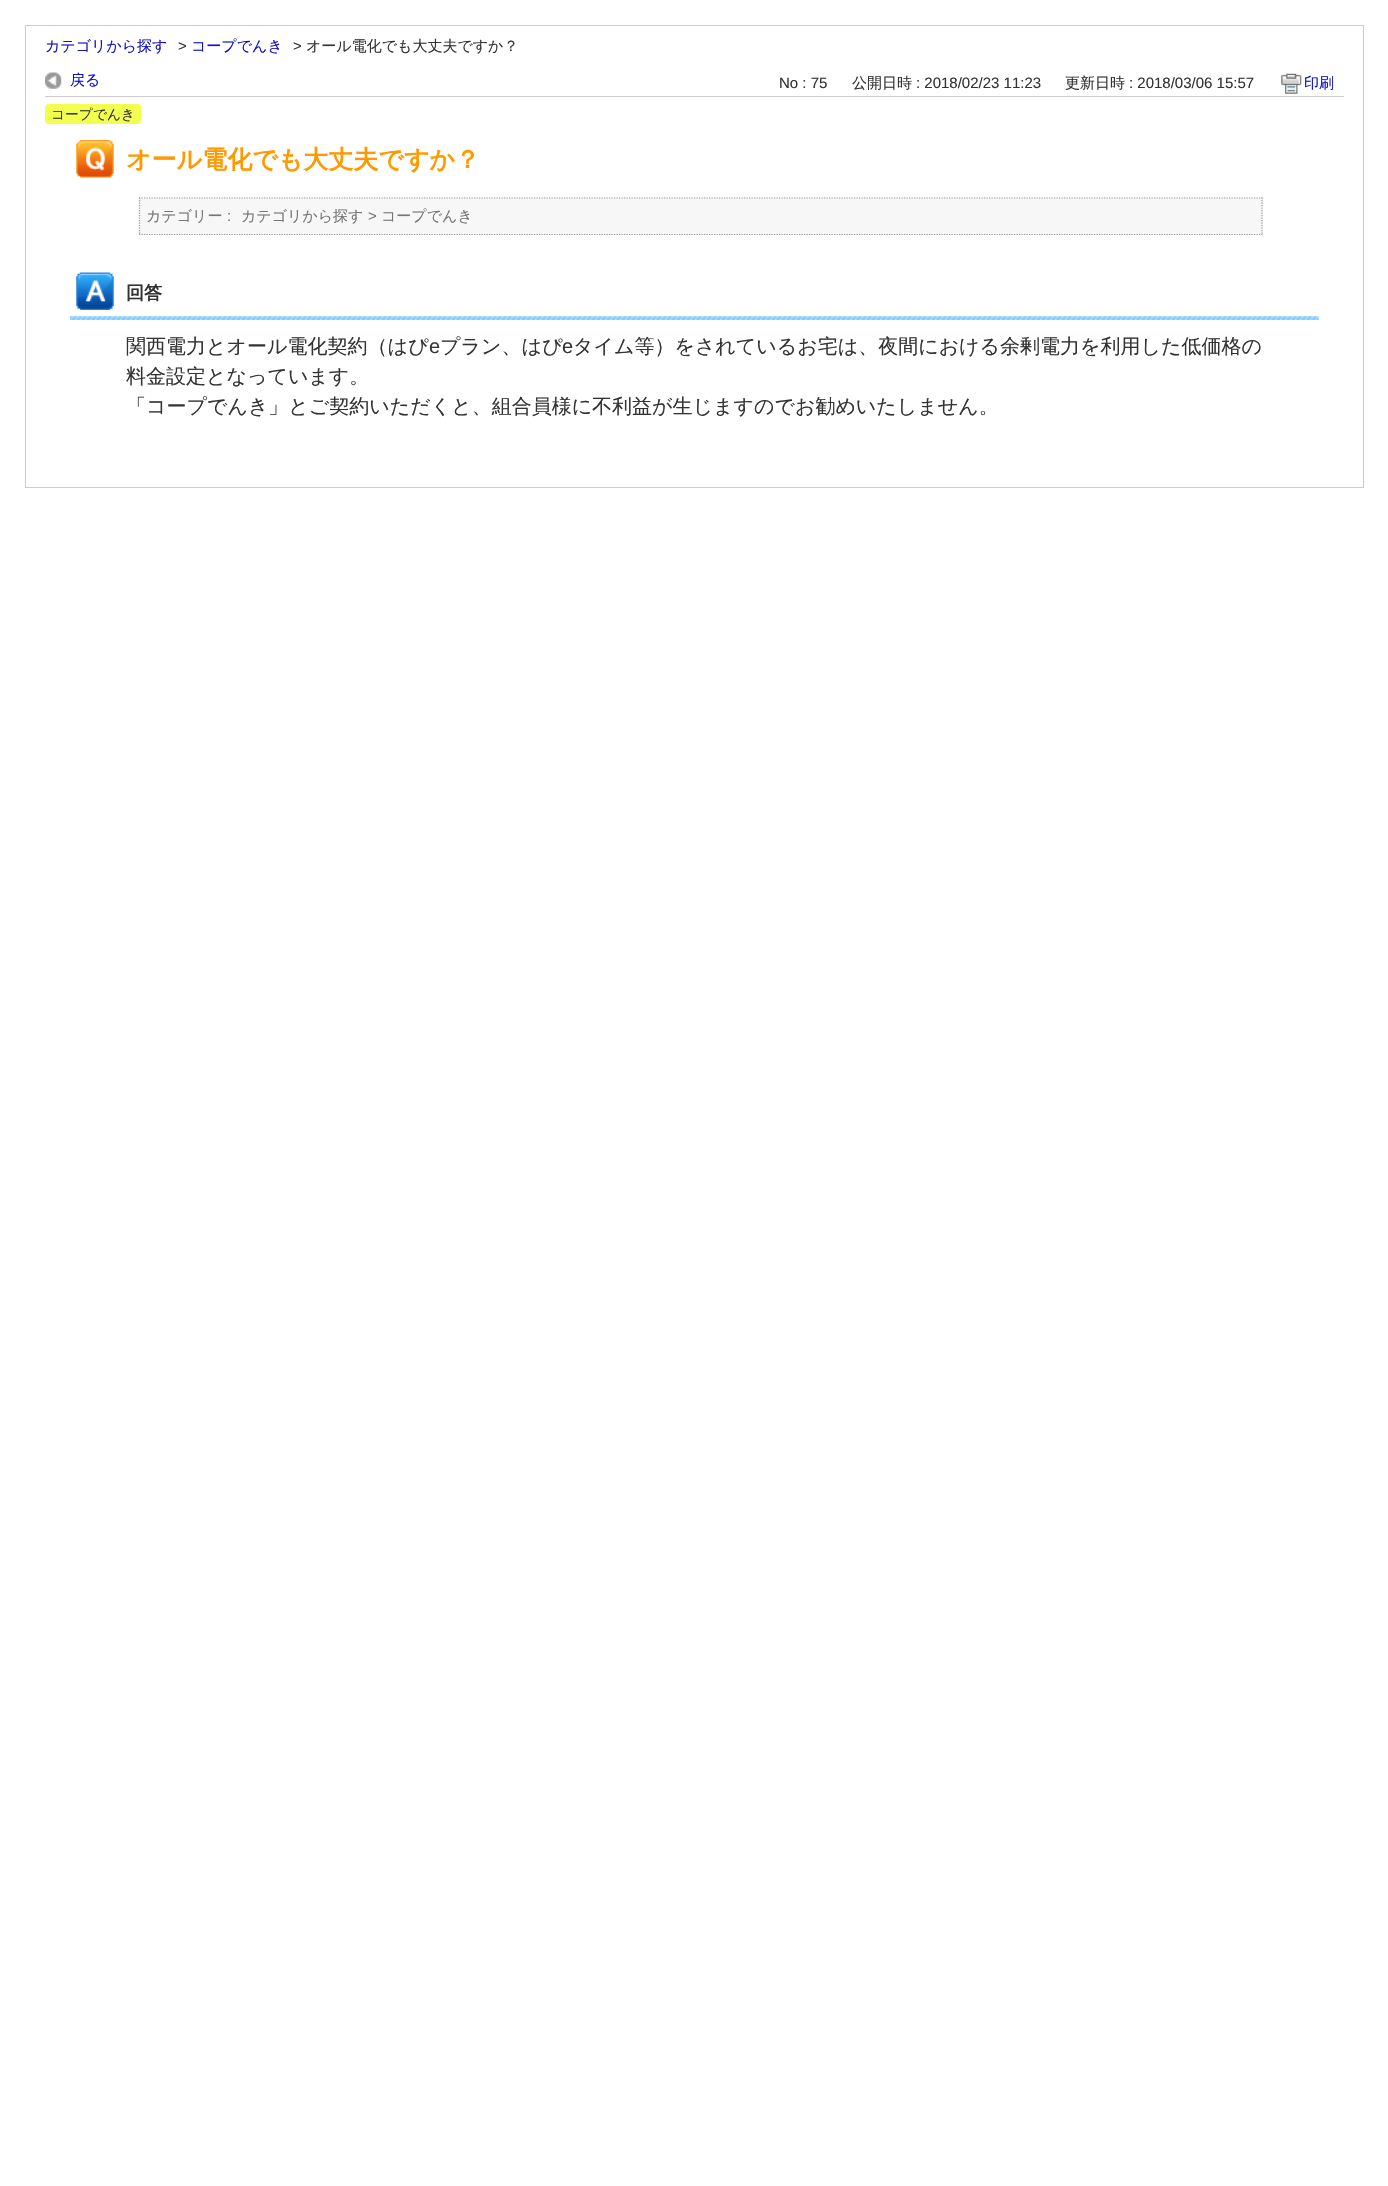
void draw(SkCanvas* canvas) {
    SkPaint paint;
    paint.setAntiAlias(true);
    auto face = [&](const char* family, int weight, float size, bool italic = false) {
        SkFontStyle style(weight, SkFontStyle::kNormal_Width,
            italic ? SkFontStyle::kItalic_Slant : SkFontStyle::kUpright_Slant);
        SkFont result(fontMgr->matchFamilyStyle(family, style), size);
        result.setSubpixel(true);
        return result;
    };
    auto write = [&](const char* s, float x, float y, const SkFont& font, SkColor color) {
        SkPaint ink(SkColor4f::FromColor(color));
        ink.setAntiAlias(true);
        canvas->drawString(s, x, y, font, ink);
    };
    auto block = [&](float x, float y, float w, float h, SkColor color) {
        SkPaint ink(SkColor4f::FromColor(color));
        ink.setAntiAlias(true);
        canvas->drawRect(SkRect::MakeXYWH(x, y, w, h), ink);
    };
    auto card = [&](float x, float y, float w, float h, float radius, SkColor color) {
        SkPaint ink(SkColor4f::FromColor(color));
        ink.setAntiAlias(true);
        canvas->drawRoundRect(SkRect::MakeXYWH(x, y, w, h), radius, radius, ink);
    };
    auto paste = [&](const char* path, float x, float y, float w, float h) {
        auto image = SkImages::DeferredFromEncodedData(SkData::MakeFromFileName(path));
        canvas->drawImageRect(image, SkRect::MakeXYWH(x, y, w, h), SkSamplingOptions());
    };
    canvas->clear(SK_ColorWHITE);
    paint.setStyle(SkPaint::kStroke_Style);
    paint.setStrokeWidth(1);
    paint.setColor(SkColorSetRGB(204, 204, 204));
    canvas->drawRect(SkRect::MakeXYWH(25.5f, 25.5f, 1338, 462), paint);
    auto kFont1 = face("WenQuanYi Zen Hei", 500, 15);
    write("カテゴリから探す", 45, 51, kFont1, SkColorSetRGB(17, 17, 204));
    auto kFont2 = face("Liberation Sans", 400, 15);
    write(">", 178, 51, kFont2, SkColorSetRGB(51, 51, 51));
    write("コープでんき", 191, 51, kFont1, SkColorSetRGB(17, 17, 204));
    write(">", 293, 51, kFont2, SkColorSetRGB(51, 51, 51));
    write("オール電化でも大丈夫ですか？", 306, 51, kFont1, SkColorSetRGB(51, 51, 51));
    block(45, 96, 1299, 1, SkColorSetRGB(204, 204, 204));
    paste("pic1.png", 45, 72, 17, 17);
    write("戻る", 70, 85, kFont1, SkColorSetRGB(17, 17, 204));
    write("No : 75", 779, 88, kFont2, SkColorSetRGB(51, 51, 51));
    write("公開日時", 852, 88, kFont1, SkColorSetRGB(51, 51, 51));
    write(": 2018/02/23 11:23", 916, 88, kFont2, SkColorSetRGB(51, 51, 51));
    write("更新日時", 1065, 88, kFont1, SkColorSetRGB(51, 51, 51));
    write(": 2018/03/06 15:57", 1129, 88, kFont2, SkColorSetRGB(51, 51, 51));
    paste("pic2.png", 1281, 73, 21, 21);
    write("印刷", 1304, 88, kFont1, SkColorSetRGB(17, 17, 204));
    card(45, 104, 96, 20, 4, SkColorSetRGB(243, 255, 79));
    auto kFont3 = face("WenQuanYi Zen Hei", 500, 13.75f);
    write("コープでんき", 51, 119, kFont3, SkColorSetRGB(51, 51, 51));
    paste("pic3.png", 76, 140, 38, 38);
    auto kFont4 = face("WenQuanYi Zen Hei", 700, 25);
    write("オール電化でも大丈夫ですか？", 126, 168, kFont4, SkColorSetRGB(255, 153, 0));
    block(139, 198, 1124, 37, SkColorSetRGB(247, 247, 247));
    paint.setStrokeWidth(1.2f);
    paint.setColor(SkColorSetRGB(153, 153, 153));
    paint.setPathEffect(SkDashPathEffect::Make({{1.25f, 1.25f}}, 0));
    canvas->drawPath(SkPathBuilder().moveTo(139, 198).lineTo(1262.5f, 198).detach(), paint);
    paint.setPathEffect(nullptr);
    paint.setPathEffect(SkDashPathEffect::Make({{1.25f, 1.25f}}, 0));
    canvas->drawPath(SkPathBuilder().moveTo(1262, 197.5f).lineTo(1262, 235).detach(), paint);
    paint.setPathEffect(nullptr);
    paint.setPathEffect(SkDashPathEffect::Make({{1.25f, 1.25f}}, 0));
    canvas->drawPath(SkPathBuilder().moveTo(139, 234.5f).lineTo(1262.5f, 234.5f).detach(), paint);
    paint.setPathEffect(nullptr);
    paint.setPathEffect(SkDashPathEffect::Make({{1.25f, 1.25f}}, 0));
    canvas->drawPath(SkPathBuilder().moveTo(139.5f, 197.5f).lineTo(139.5f, 235).detach(), paint);
    paint.setPathEffect(nullptr);
    write("カテゴリー", 146, 221, kFont1, SkColorSetRGB(118, 118, 118));
    write(":", 227, 221, kFont2, SkColorSetRGB(118, 118, 118));
    write("カテゴリから探す", 241, 221, kFont1, SkColorSetRGB(118, 118, 118));
    write(">", 368, 221, kFont2, SkColorSetRGB(118, 118, 118));
    write("コープでんき", 381, 221, kFont1, SkColorSetRGB(118, 118, 118));
    paste("pic4.png", 70, 316, 1249, 4);
    paste("pic5.png", 76, 272, 38, 38);
    auto kFont5 = face("WenQuanYi Zen Hei", 700, 18);
    write("回答", 126, 299, kFont5, SkColorSetRGB(51, 51, 51));
    auto kFont6 = face("WenQuanYi Zen Hei", 500, 20);
    write("関西電力とオール電化契約（はぴ", 126, 353, kFont6, SkColorSetRGB(51, 51, 51));
    auto kFont7 = face("Liberation Sans", 400, 20);
    write("e", 429, 353, kFont7, SkColorSetRGB(51, 51, 51));
    write("プラン、はぴ", 440, 353, kFont6, SkColorSetRGB(51, 51, 51));
    write("e", 562, 353, kFont7, SkColorSetRGB(51, 51, 51));
    write("タイム等）をされているお宅は、夜間における余剰電力を利用した低価格の", 573, 353, kFont6, SkColorSetRGB(51, 51, 51));
    write("料金設定となっています。", 126, 383, kFont6, SkColorSetRGB(51, 51, 51));
    write("「コープでんき」とご契約いただくと、組合員様に不利益が生じますのでお勧めいたしません。", 126, 413, kFont6, SkColorSetRGB(51, 51, 51));
}
